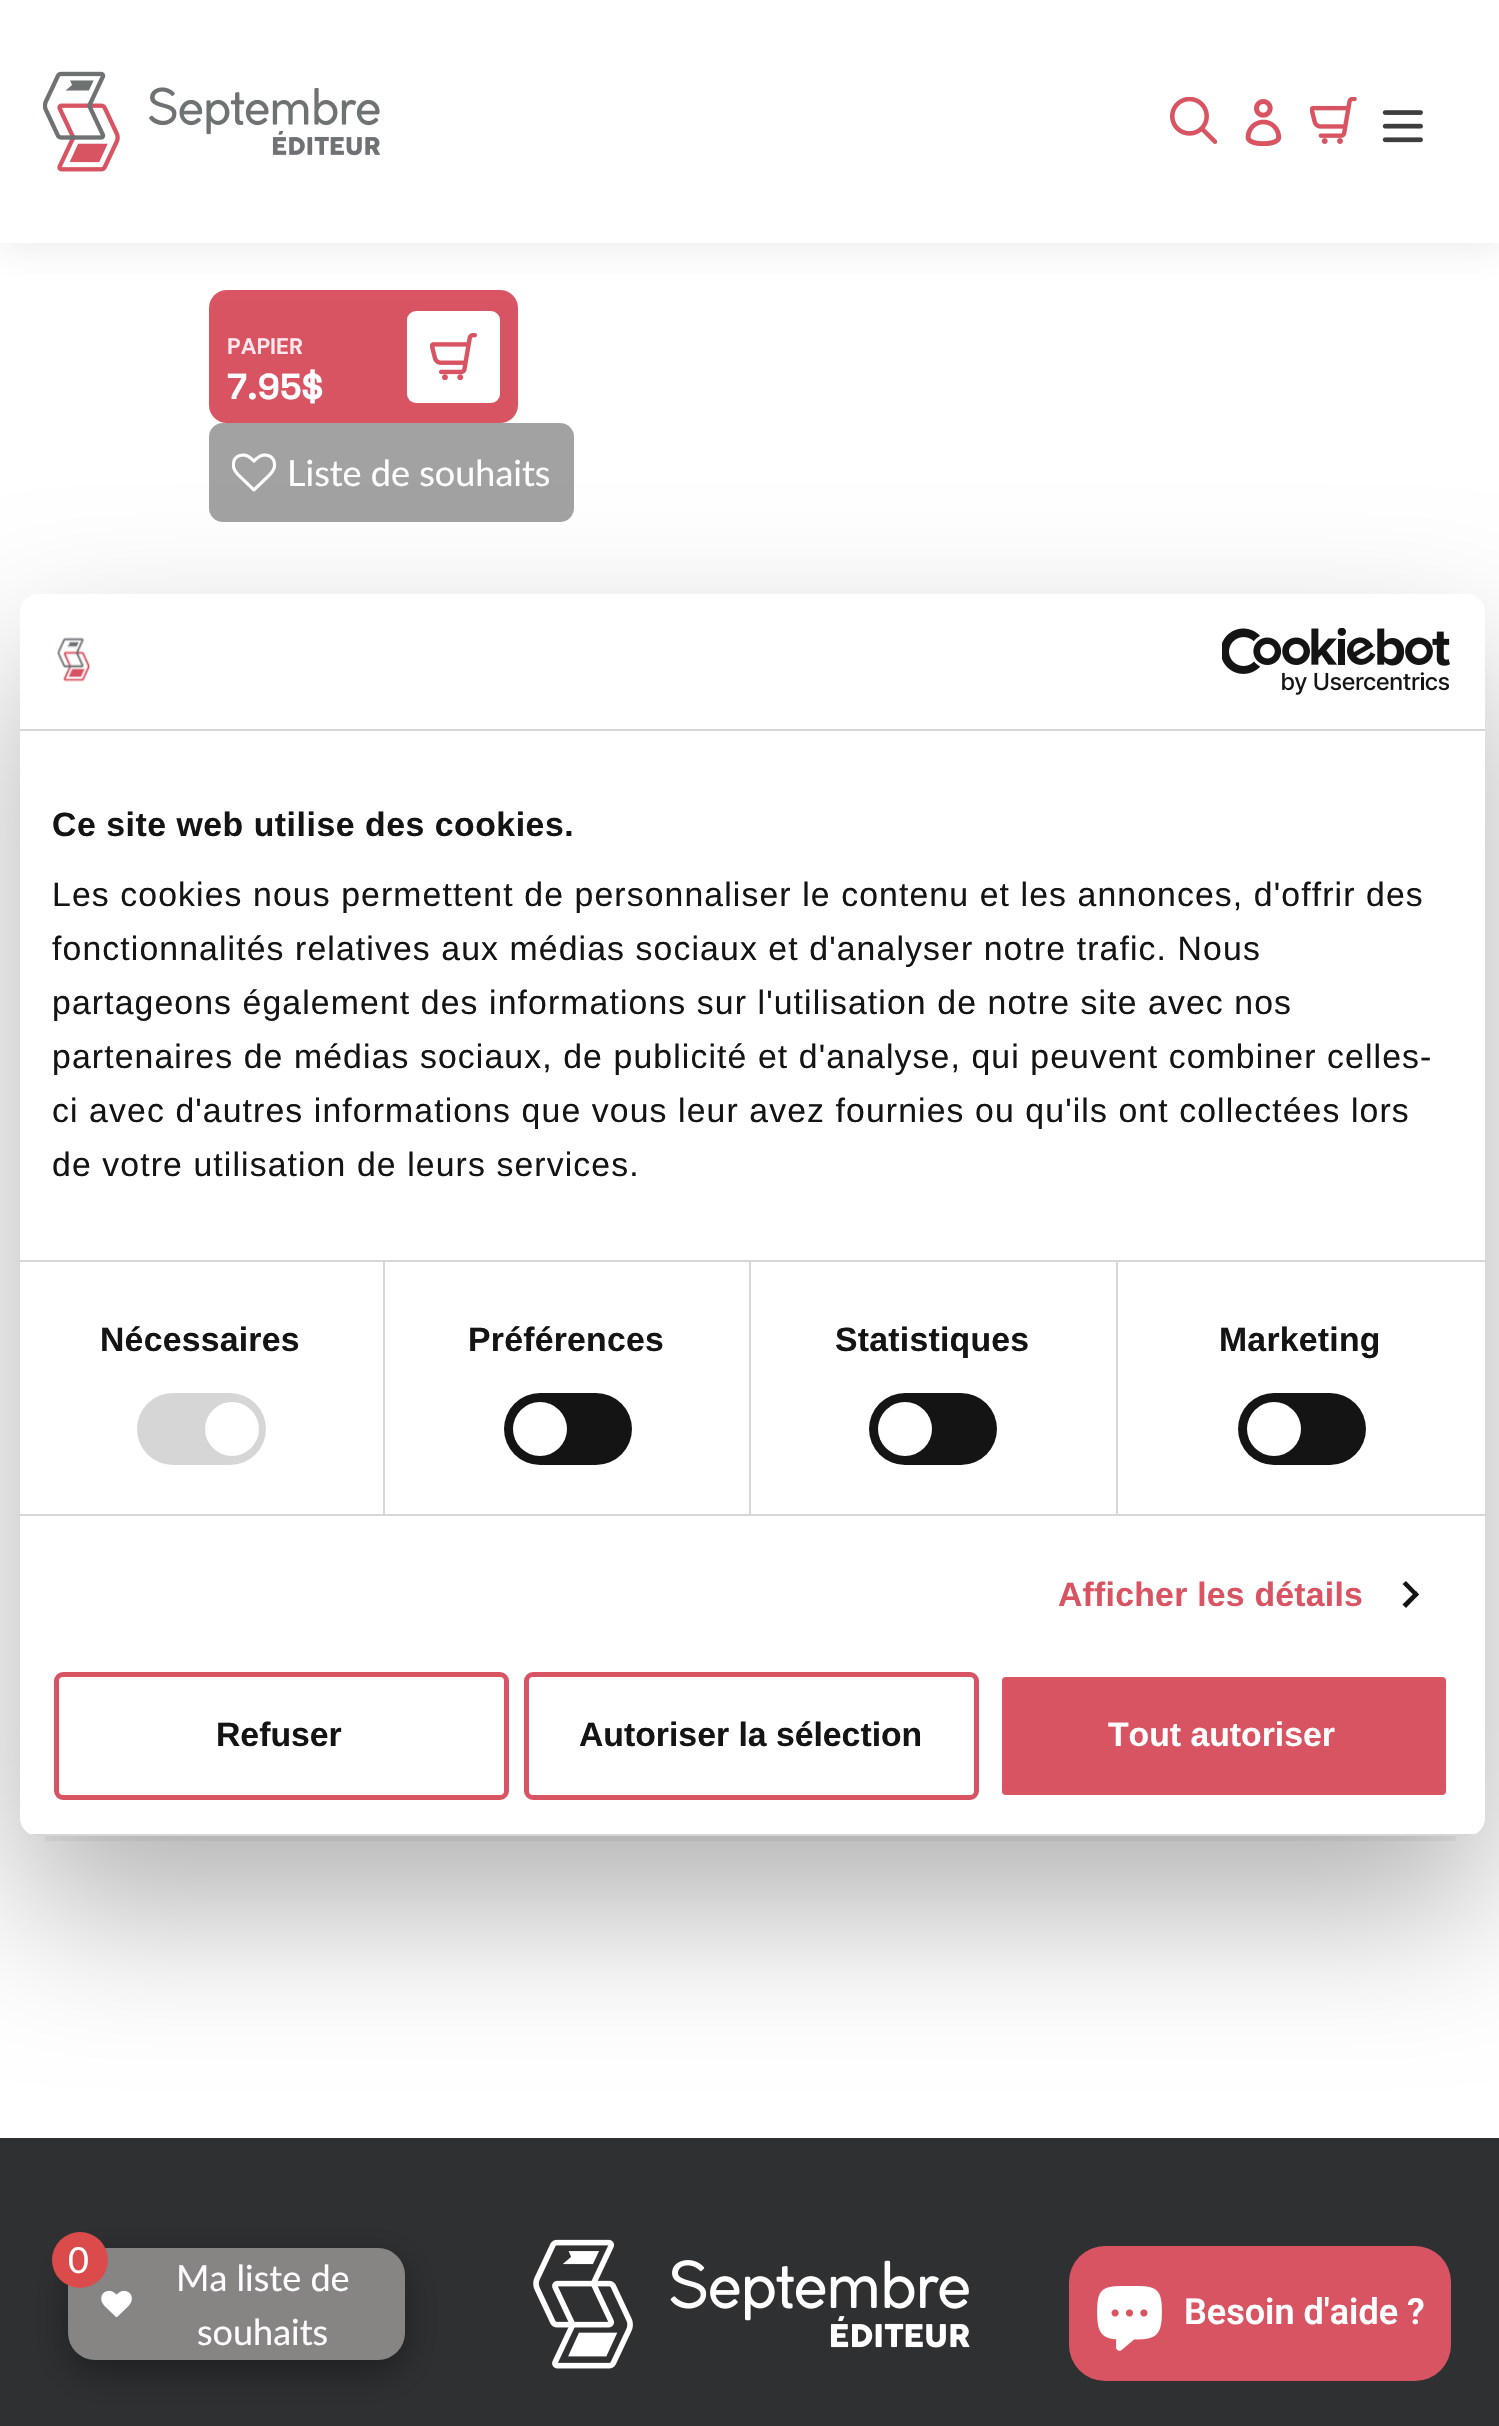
void draw(SkCanvas* canvas) {
    SkPaint paint;
    paint.setAntiAlias(true);
    auto face = [&](const char* family, int weight, float size, bool italic = false) {
        SkFontStyle style(weight, SkFontStyle::kNormal_Width,
            italic ? SkFontStyle::kItalic_Slant : SkFontStyle::kUpright_Slant);
        SkFont result(fontMgr->matchFamilyStyle(family, style), size);
        result.setSubpixel(true);
        return result;
    };
    auto write = [&](const char* s, float x, float y, const SkFont& font, SkColor color) {
        SkPaint ink(SkColor4f::FromColor(color));
        ink.setAntiAlias(true);
        canvas->drawString(s, x, y, font, ink);
    };
    auto writeSpaced = [&](const char* s, float x, float y, const SkFont& font, const SkPaint& ink, float letter, float word) {
        std::vector<SkGlyphID> glyphs(font.countText(s, strlen(s), SkTextEncoding::kUTF8));
        std::vector<float> xs(glyphs.size());
        font.textToGlyphs(s, strlen(s), SkTextEncoding::kUTF8, glyphs);
        font.getXPos(glyphs, xs, x);
        float extra = 0;
        for (size_t i = 0; i < glyphs.size(); i++) {
            xs[i] += extra;
            extra += letter + word * (glyphs[i] == font.unicharToGlyph(' '));
        }
        canvas->drawTextBlob(SkTextBlob::MakeFromPosHGlyphs(glyphs, xs, y, font), 0, 0, ink);
    };
    auto block = [&](float x, float y, float w, float h, SkColor color) {
        SkPaint ink(SkColor4f::FromColor(color));
        ink.setAntiAlias(true);
        canvas->drawRect(SkRect::MakeXYWH(x, y, w, h), ink);
    };
    auto card = [&](float x, float y, float w, float h, float radius, SkColor color) {
        SkPaint ink(SkColor4f::FromColor(color));
        ink.setAntiAlias(true);
        canvas->drawRoundRect(SkRect::MakeXYWH(x, y, w, h), radius, radius, ink);
    };
    auto paste = [&](const char* path, float x, float y, float w, float h) {
        auto image = SkImages::DeferredFromEncodedData(SkData::MakeFromFileName(path));
        canvas->drawImageRect(image, SkRect::MakeXYWH(x, y, w, h), SkSamplingOptions());
    };
    canvas->clear(SK_ColorWHITE);
    card(209, 290, 309, 133, 18, SkColorSetRGB(217, 84, 99));
    paint.setColor(SkColorSetARGB(26, 61, 62, 63));
    paint.setMaskFilter(SkMaskFilter::MakeBlur(kNormal_SkBlurStyle, 18));
    canvas->drawRect(SkRect::MakeXYWH(0, 5, 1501, 243), paint);
    paint.setMaskFilter(nullptr);
    block(0, 0, 1499, 243, SK_ColorWHITE);
    paste("pic1.png", 43, 71, 337, 101);
    paste("pic2.png", 1170, 97, 47, 47);
    paste("pic3.png", 1245, 99, 37, 47);
    paste("pic4.png", 1310, 97, 47, 47);
    paste("pic5.png", 1382, 110, 41, 33);
    auto kFont1 = face("DM Sans", 700, 22.5f);
    write("PAPIER", 227, 354, kFont1, SkColorSetRGB(255, 233, 236));
    auto kFont2 = face("Space Grotesk", 700, 36);
    write("7.95$", 227, 399, kFont2, SK_ColorWHITE);
    card(407, 311, 93, 92, 9, SK_ColorWHITE);
    paste("pic6.png", 430, 333, 47, 47);
    card(209, 423, 365, 99, 14, SkColorSetRGB(162, 162, 162));
    paste("pic7.png", 232, 453, 45, 39);
    auto kFont3 = face("Lato", 400, 36);
    write("Liste de souhaits", 287, 486, kFont3, SK_ColorWHITE);
    block(45, 1836, 1411, 5, SkColorSetRGB(244, 244, 244));
    block(0, 2138, 1499, 288, SkColorSetRGB(46, 48, 50));
    paste("pic8.png", 533, 2239, 437, 130);
    paint.setColor(SkColorSetARGB(77, 0, 0, 0));
    paint.setMaskFilter(SkMaskFilter::MakeBlur(kNormal_SkBlurStyle, 76.5f));
    canvas->drawRoundRect(SkRect::MakeXYWH(20, 666, 1465, 1242), 18, 18, paint);
    paint.setMaskFilter(nullptr);
    card(20, 594, 1465, 1242, 18, SK_ColorWHITE);
    block(20, 729, 1465, 2, SkColorSetRGB(214, 214, 214));
    paste("pic9.png", 57, 637, 34, 45);
    paste("pic10.png", 1222, 628, 228, 67);
    block(20, 1260, 1465, 2, SkColorSetRGB(214, 214, 214));
    auto kFont4 = face("Liberation Sans", 700, 33.75f);
    paint.setColor(SkColorSetRGB(20, 20, 20));
    writeSpaced("Ce site web utilise des cookies.", 52, 836, kFont4, paint, 0.55f, 0);
    auto kFont5 = face("Liberation Sans", 400, 33.75f);
    writeSpaced("Les cookies nous permettent de personnaliser le contenu et les annonces, d'offrir des", 52, 906, kFont5, paint, 1.12f, 0);
    writeSpaced("fonctionnalités relatives aux médias sociaux et d'analyser notre trafic. Nous", 52, 960, kFont5, paint, 1.12f, 0);
    writeSpaced("partageons également des informations sur l'utilisation de notre site avec nos", 52, 1014, kFont5, paint, 1.12f, 0);
    writeSpaced("partenaires de médias sociaux, de publicité et d'analyse, qui peuvent combiner celles-", 52, 1068, kFont5, paint, 1.12f, 0);
    writeSpaced("ci avec d'autres informations que vous leur avez fournies ou qu'ils ont collectées lors", 52, 1122, kFont5, paint, 1.12f, 0);
    writeSpaced("de votre utilisation de leurs services.", 52, 1176, kFont5, paint, 1.12f, 0);
    block(20, 1514, 1465, 2, SkColorSetRGB(214, 214, 214));
    block(383, 1262, 2, 252, SkColorSetRGB(214, 214, 214));
    writeSpaced("Nécessaires", 100, 1351, kFont4, paint, 0.25f, 0);
    card(137, 1393, 129, 72, 36, SkColorSetRGB(214, 214, 214));
    paint.setColor(SK_ColorWHITE);
    canvas->drawCircle(232, 1429, 27, paint);
    block(749, 1262, 2, 252, SkColorSetRGB(214, 214, 214));
    paint.setColor(SkColorSetRGB(20, 20, 20));
    writeSpaced("Préférences", 468, 1351, kFont4, paint, 0.25f, 0);
    card(504, 1393, 128, 72, 36, SkColorSetRGB(20, 20, 20));
    paint.setColor(SK_ColorWHITE);
    canvas->drawCircle(540, 1429, 27, paint);
    block(1116, 1262, 2, 252, SkColorSetRGB(214, 214, 214));
    paint.setColor(SkColorSetRGB(20, 20, 20));
    writeSpaced("Statistiques", 835, 1351, kFont4, paint, 0.25f, 0);
    card(869, 1393, 128, 72, 36, SkColorSetRGB(20, 20, 20));
    paint.setColor(SK_ColorWHITE);
    canvas->drawCircle(905, 1429, 27, paint);
    paint.setColor(SkColorSetRGB(20, 20, 20));
    writeSpaced("Marketing", 1219, 1351, kFont4, paint, 0.25f, 0);
    card(1238, 1393, 128, 72, 36, SkColorSetRGB(20, 20, 20));
    paint.setColor(SK_ColorWHITE);
    canvas->drawCircle(1274, 1429, 27, paint);
    paint.setColor(SkColorSetRGB(217, 84, 99));
    writeSpaced("Afficher les détails", 1058, 1606, kFont4, paint, 0.25f, 0);
    paint.setColor(SkColorSetRGB(20, 20, 20));
    canvas->drawPath(SkPathBuilder().moveTo(1406, 1581).lineTo(1419, 1594.5f).lineTo(1416, 1597.5f).lineTo(1402.5f, 1584).close().detach(), paint);
    canvas->drawPath(SkPathBuilder().moveTo(1416, 1591).lineTo(1419, 1594.5f).lineTo(1406, 1608).lineTo(1402.5f, 1604.5f).close().detach(), paint);
    canvas->save();
    canvas->clipPath(SkPathBuilder().moveTo(38, 594).lineTo(1467, 594).cubicTo(1477, 594, 1485, 602, 1485, 612).lineTo(1485, 1818).cubicTo(1485, 1828, 1477, 1836, 1467, 1836).lineTo(38, 1836).cubicTo(28, 1836, 20, 1828, 20, 1818).lineTo(20, 612).cubicTo(20, 602, 28, 594, 38, 594).close().detach(), true);
    block(30, 1834, 1445, 2, SkColorSetRGB(214, 214, 214));
    canvas->restore();
    paint.setStyle(SkPaint::kStroke_Style);
    paint.setStrokeWidth(5);
    paint.setColor(SkColorSetRGB(217, 84, 99));
    canvas->drawRoundRect(SkRect::MakeXYWH(56.5f, 1674.5f, 450, 123), 6.5f, 6.5f, paint);
    write("Refuser", 216, 1746, kFont4, SkColorSetRGB(20, 20, 20));
    canvas->drawRoundRect(SkRect::MakeXYWH(526.5f, 1674.5f, 450, 123), 6.5f, 6.5f, paint);
    write("Autoriser la sélection", 579, 1746, kFont4, SkColorSetRGB(20, 20, 20));
    paint.setStyle(SkPaint::kFill_Style);
    canvas->drawRoundRect(SkRect::MakeXYWH(999.5f, 1674.5f, 449, 123), 6.5f, 6.5f, paint);
    paint.setStyle(SkPaint::kStroke_Style);
    paint.setColor(SK_ColorWHITE);
    canvas->drawRoundRect(SkRect::MakeXYWH(999.5f, 1674.5f, 449, 123), 6.5f, 6.5f, paint);
    write("Tout autoriser", 1108, 1746, kFont4, SK_ColorWHITE);
    paint.setStyle(SkPaint::kFill_Style);
    paint.setColor(SkColorSetARGB(89, 0, 0, 0));
    paint.setMaskFilter(SkMaskFilter::MakeBlur(kNormal_SkBlurStyle, 17));
    canvas->drawRoundRect(SkRect::MakeXYWH(68, 2259, 337, 113), 27, 27, paint);
    paint.setMaskFilter(nullptr);
    card(68, 2248, 337, 112, 27, SkColorSetRGB(135, 132, 132));
    paint.setColor(SkColorSetRGB(219, 75, 76));
    canvas->drawCircle(80, 2260, 28, paint);
    write("0", 68, 2273, kFont3, SK_ColorWHITE);
    paste("pic11.png", 101, 2290, 31, 28);
    write("Ma liste de", 176, 2291, kFont3, SK_ColorWHITE);
    write("souhaits", 197, 2345, kFont3, SK_ColorWHITE);
    card(1069, 2246, 382, 135, 36, SkColorSetRGB(217, 84, 99));
    paste("pic12.png", 1097, 2286, 65, 65);
    auto kFont6 = face("Roboto", 600, 36);
    write("Besoin d'aide ?", 1184, 2324, kFont6, SK_ColorWHITE);
}
